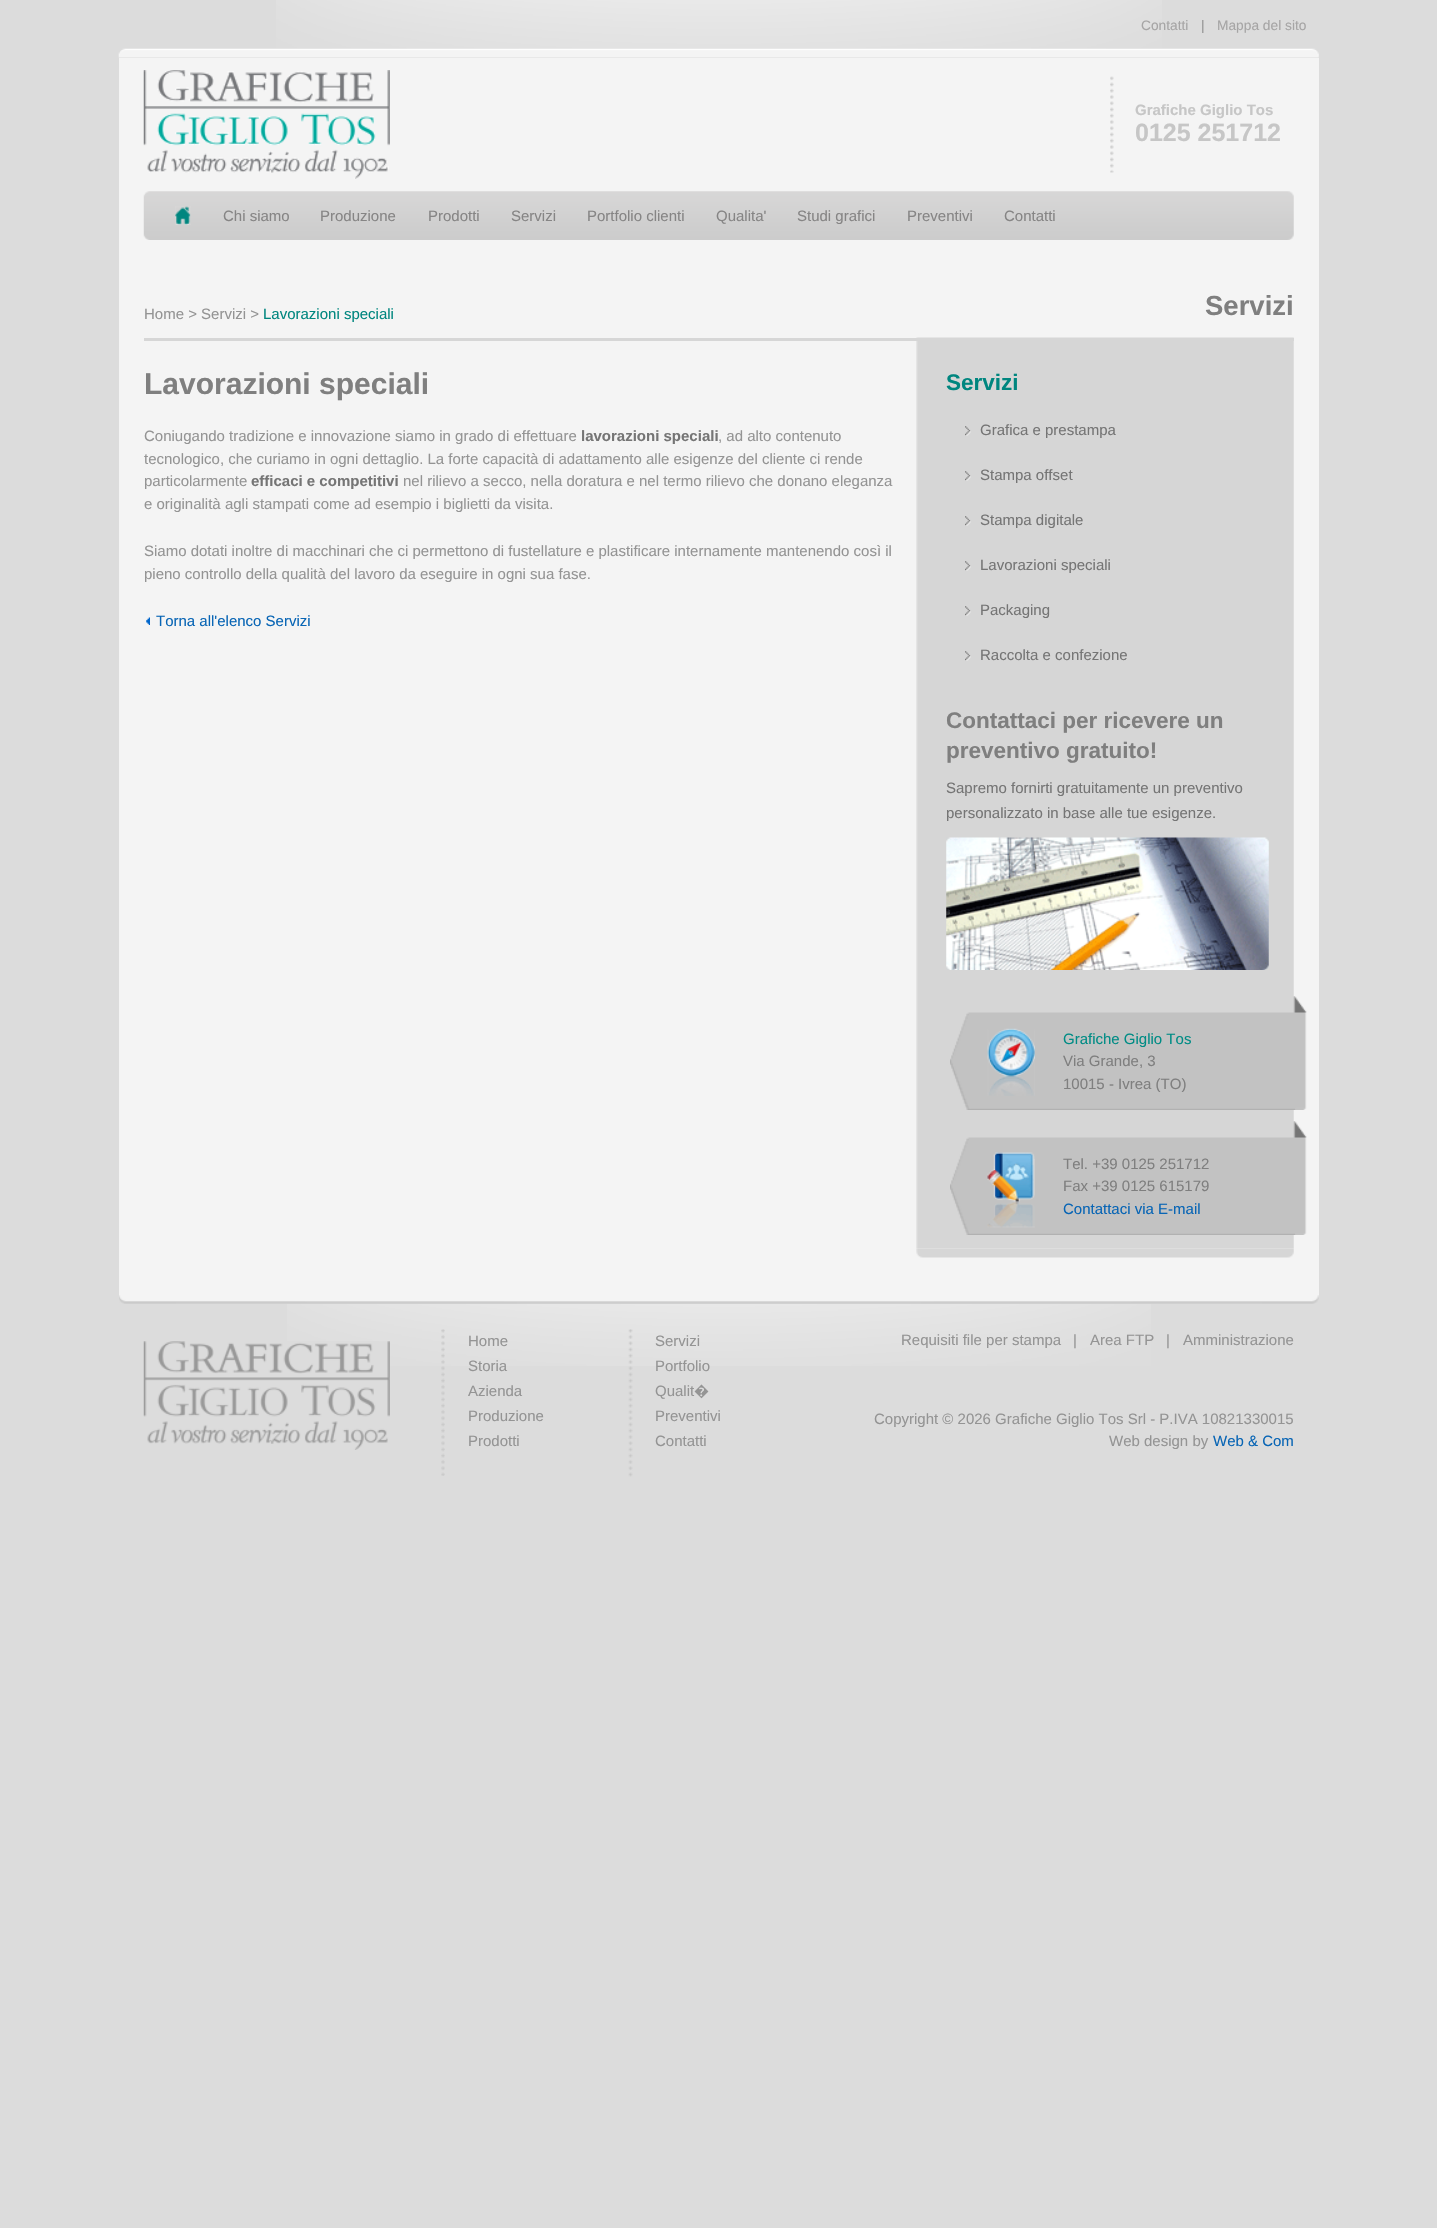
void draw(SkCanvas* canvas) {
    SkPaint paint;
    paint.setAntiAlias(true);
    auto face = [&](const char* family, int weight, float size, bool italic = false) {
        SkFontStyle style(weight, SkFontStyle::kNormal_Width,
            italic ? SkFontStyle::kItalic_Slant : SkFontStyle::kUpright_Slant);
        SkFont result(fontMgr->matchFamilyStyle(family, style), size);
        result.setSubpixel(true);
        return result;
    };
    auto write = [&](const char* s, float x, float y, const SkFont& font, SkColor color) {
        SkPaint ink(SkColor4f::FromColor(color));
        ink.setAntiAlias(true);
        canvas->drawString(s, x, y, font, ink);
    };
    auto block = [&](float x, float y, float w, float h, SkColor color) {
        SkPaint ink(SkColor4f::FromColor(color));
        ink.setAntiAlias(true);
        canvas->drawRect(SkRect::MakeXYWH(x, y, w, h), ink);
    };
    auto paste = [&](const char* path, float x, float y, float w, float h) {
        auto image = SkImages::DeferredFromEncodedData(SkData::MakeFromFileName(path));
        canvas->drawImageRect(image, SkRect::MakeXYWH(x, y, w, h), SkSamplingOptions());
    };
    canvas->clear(SkColorSetRGB(220, 220, 220));
    paste("pic1.png", 276, 0, 886, 49);
    auto kFont1 = face("Liberation Sans", 400, 13.75f);
    write("Contatti", 1141, 30, kFont1, SkColorSetRGB(166, 165, 165));
    write("|", 1201, 30, kFont1, SkColorSetRGB(148, 148, 148));
    write("Mappa del sito", 1217, 30, kFont1, SkColorSetRGB(166, 165, 165));
    paste("pic2.png", 118, 48, 1201, 10);
    block(119, 58, 1200, 1237, SkColorSetRGB(244, 244, 244));
    paste("pic3.png", 143, 70, 247, 109);
    paste("pic4.png", 1110, 76, 4, 97);
    auto kFont2 = face("Liberation Sans", 700, 15);
    write("Grafiche Giglio Tos", 1135, 115, kFont2, SkColorSetRGB(198, 198, 198));
    auto kFont3 = face("Liberation Sans", 700, 25);
    write("0125 251712", 1135, 141, kFont3, SkColorSetRGB(198, 198, 198));
    paste("pic5.png", 143, 191, 1151, 49);
    paste("pic6.png", 175, 206, 16, 19);
    auto kFont4 = face("Liberation Sans", 400, 15);
    write("Chi siamo", 223, 221, kFont4, SkColorSetRGB(134, 133, 133));
    write("Produzione", 320, 221, kFont4, SkColorSetRGB(134, 133, 133));
    write("Prodotti", 428, 221, kFont4, SkColorSetRGB(134, 133, 133));
    write("Servizi", 511, 221, kFont4, SkColorSetRGB(134, 133, 133));
    write("Portfolio clienti", 587, 221, kFont4, SkColorSetRGB(134, 133, 133));
    write("Qualita'", 716, 221, kFont4, SkColorSetRGB(134, 133, 133));
    write("Studi grafici", 797, 221, kFont4, SkColorSetRGB(134, 133, 133));
    write("Preventivi", 907, 221, kFont4, SkColorSetRGB(134, 133, 133));
    write("Contatti", 1004, 221, kFont4, SkColorSetRGB(134, 133, 133));
    write("Home > Servizi >", 144, 319, kFont4, SkColorSetRGB(148, 148, 148));
    write("Lavorazioni speciali", 263, 319, kFont4, SkColorSetRGB(0, 134, 127));
    auto kFont5 = face("Liberation Sans", 700, 27.5f);
    write("Servizi", 1205, 315, kFont5, SkColorSetRGB(127, 127, 127));
    paste("pic7.png", 916, 337, 378, 912);
    block(144, 338, 1150, 3, SkColorSetRGB(214, 214, 214));
    auto kFont6 = face("Liberation Sans", 700, 30);
    write("Lavorazioni speciali", 144, 394, kFont6, SkColorSetRGB(127, 127, 127));
    write("Coniugando tradizione e innovazione siamo in grado di effettuare", 144, 441, kFont4, SkColorSetRGB(148, 148, 148));
    write("lavorazioni speciali", 581, 441, kFont2, SkColorSetRGB(117, 117, 117));
    write(", ad alto contenuto", 718, 441, kFont4, SkColorSetRGB(148, 148, 148));
    write("tecnologico, che curiamo in ogni dettaglio. La forte capacità di adattamento alle esigenze del cliente ci rende", 144, 464, kFont4, SkColorSetRGB(148, 148, 148));
    write("particolarmente", 144, 486, kFont4, SkColorSetRGB(148, 148, 148));
    write("efficaci e competitivi", 251, 486, kFont2, SkColorSetRGB(117, 117, 117));
    write("nel rilievo a secco, nella doratura e nel termo rilievo che donano eleganza", 403, 486, kFont4, SkColorSetRGB(148, 148, 148));
    write("e originalità agli stampati come ad esempio i biglietti da visita.", 144, 509, kFont4, SkColorSetRGB(148, 148, 148));
    write("Siamo dotati inoltre di macchinari che ci permettono di fustellature e plastificare internamente mantenendo così il", 144, 556, kFont4, SkColorSetRGB(148, 148, 148));
    write("pieno controllo della qualità del lavoro da eseguire in ogni sua fase.", 144, 579, kFont4, SkColorSetRGB(148, 148, 148));
    paste("pic8.png", 146, 617, 4, 8);
    write("Torna all'elenco Servizi", 156, 626, kFont4, SkColorSetRGB(8, 101, 181));
    auto kFont7 = face("Liberation Sans", 700, 22.5f);
    write("Servizi", 946, 390, kFont7, SkColorSetRGB(0, 134, 127));
    paste("pic9.png", 965, 426, 6, 10);
    write("Grafica e prestampa", 980, 435, kFont4, SkColorSetRGB(117, 117, 117));
    paste("pic9.png", 965, 471, 6, 10);
    write("Stampa offset", 980, 480, kFont4, SkColorSetRGB(117, 117, 117));
    paste("pic9.png", 965, 516, 6, 10);
    write("Stampa digitale", 980, 525, kFont4, SkColorSetRGB(117, 117, 117));
    paste("pic9.png", 965, 561, 6, 10);
    write("Lavorazioni speciali", 980, 570, kFont4, SkColorSetRGB(117, 117, 117));
    paste("pic9.png", 965, 606, 6, 10);
    write("Packaging", 980, 615, kFont4, SkColorSetRGB(117, 117, 117));
    paste("pic9.png", 965, 651, 6, 10);
    write("Raccolta e confezione", 980, 660, kFont4, SkColorSetRGB(117, 117, 117));
    write("Contattaci per ricevere un", 946, 728, kFont7, SkColorSetRGB(127, 127, 127));
    write("preventivo gratuito!", 946, 758, kFont7, SkColorSetRGB(127, 127, 127));
    write("Sapremo fornirti gratuitamente un preventivo", 946, 793, kFont4, SkColorSetRGB(117, 117, 117));
    write("personalizzato in base alle tue esigenze.", 946, 818, kFont4, SkColorSetRGB(117, 117, 117));
    paste("pic10.png", 946, 837, 323, 133);
    paste("pic11.png", 950, 996, 357, 114);
    paste("pic12.png", 987, 1028, 48, 68);
    write("Grafiche Giglio Tos", 1063, 1044, kFont4, SkColorSetRGB(0, 140, 133));
    write("Via Grande, 3", 1063, 1066, kFont4, SkColorSetRGB(127, 127, 127));
    write("10015 - Ivrea (TO)", 1063, 1089, kFont4, SkColorSetRGB(127, 127, 127));
    paste("pic13.png", 950, 1121, 357, 114);
    paste("pic14.png", 987, 1152, 48, 76);
    write("Tel. +39 0125 251712", 1063, 1169, kFont4, SkColorSetRGB(127, 127, 127));
    write("Fax +39 0125 615179", 1063, 1191, kFont4, SkColorSetRGB(127, 127, 127));
    write("Contattaci via E-mail", 1063, 1214, kFont4, SkColorSetRGB(8, 101, 181));
    paste("pic15.png", 916, 1249, 378, 9);
    paste("pic16.png", 119, 1295, 1200, 9);
    paste("pic17.png", 287, 1304, 864, 62);
    paste("pic18.png", 143, 1341, 247, 109);
    paste("pic19.png", 441, 1329, 4, 147);
    write("Home", 468, 1346, kFont4, SkColorSetRGB(148, 148, 148));
    write("Storia", 468, 1371, kFont4, SkColorSetRGB(148, 148, 148));
    write("Azienda", 468, 1396, kFont4, SkColorSetRGB(148, 148, 148));
    write("Produzione", 468, 1421, kFont4, SkColorSetRGB(148, 148, 148));
    write("Prodotti", 468, 1446, kFont4, SkColorSetRGB(148, 148, 148));
    paste("pic20.png", 628, 1329, 5, 148);
    write("Servizi", 655, 1346, kFont4, SkColorSetRGB(148, 148, 148));
    write("Portfolio", 655, 1371, kFont4, SkColorSetRGB(148, 148, 148));
    write("Qualit", 655, 1396, kFont4, SkColorSetRGB(148, 148, 148));
    auto kFont8 = face("Noto Sans", 400, 15);
    write("�", 694, 1396, kFont8, SkColorSetRGB(148, 148, 148));
    write("Preventivi", 655, 1421, kFont4, SkColorSetRGB(148, 148, 148));
    write("Contatti", 655, 1446, kFont4, SkColorSetRGB(148, 148, 148));
    write("Requisiti file per stampa", 901, 1345, kFont4, SkColorSetRGB(148, 148, 148));
    write("|", 1073, 1345, kFont4, SkColorSetRGB(148, 148, 148));
    write("Area FTP", 1090, 1345, kFont4, SkColorSetRGB(148, 148, 148));
    write("|", 1166, 1345, kFont4, SkColorSetRGB(148, 148, 148));
    write("Amministrazione", 1183, 1345, kFont4, SkColorSetRGB(148, 148, 148));
    write("Copyright © 2026 Grafiche Giglio Tos Srl - P.IVA 10821330015", 874, 1424, kFont4, SkColorSetRGB(148, 148, 148));
    write("Web design by", 1109, 1446, kFont4, SkColorSetRGB(148, 148, 148));
    write("Web & Com", 1213, 1446, kFont4, SkColorSetRGB(8, 101, 181));
}
